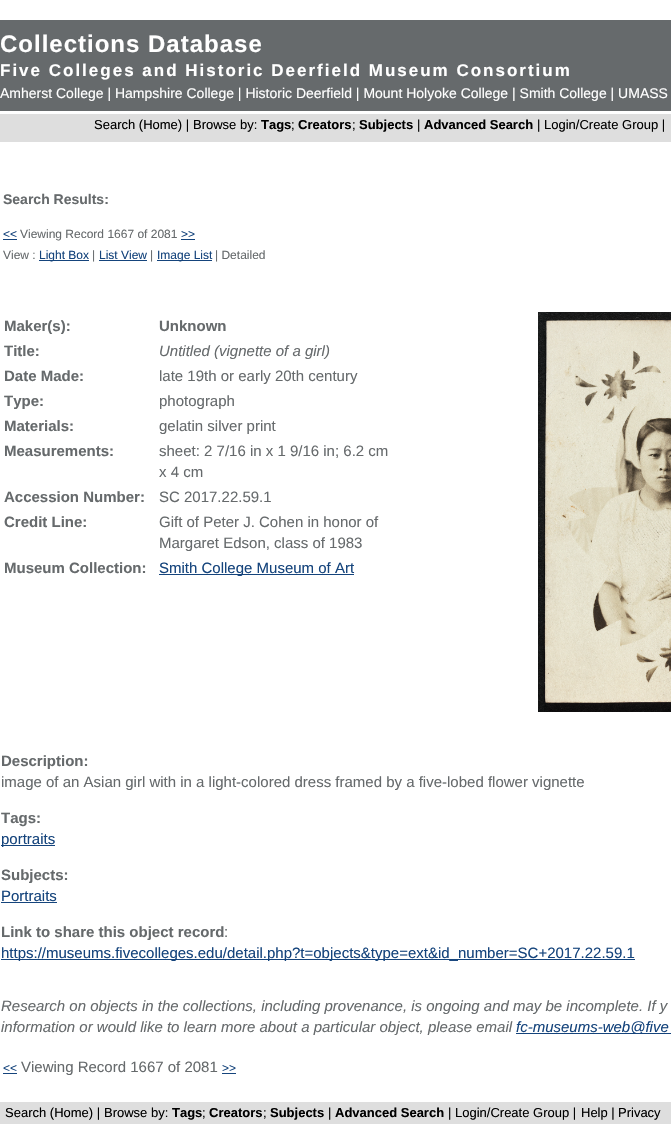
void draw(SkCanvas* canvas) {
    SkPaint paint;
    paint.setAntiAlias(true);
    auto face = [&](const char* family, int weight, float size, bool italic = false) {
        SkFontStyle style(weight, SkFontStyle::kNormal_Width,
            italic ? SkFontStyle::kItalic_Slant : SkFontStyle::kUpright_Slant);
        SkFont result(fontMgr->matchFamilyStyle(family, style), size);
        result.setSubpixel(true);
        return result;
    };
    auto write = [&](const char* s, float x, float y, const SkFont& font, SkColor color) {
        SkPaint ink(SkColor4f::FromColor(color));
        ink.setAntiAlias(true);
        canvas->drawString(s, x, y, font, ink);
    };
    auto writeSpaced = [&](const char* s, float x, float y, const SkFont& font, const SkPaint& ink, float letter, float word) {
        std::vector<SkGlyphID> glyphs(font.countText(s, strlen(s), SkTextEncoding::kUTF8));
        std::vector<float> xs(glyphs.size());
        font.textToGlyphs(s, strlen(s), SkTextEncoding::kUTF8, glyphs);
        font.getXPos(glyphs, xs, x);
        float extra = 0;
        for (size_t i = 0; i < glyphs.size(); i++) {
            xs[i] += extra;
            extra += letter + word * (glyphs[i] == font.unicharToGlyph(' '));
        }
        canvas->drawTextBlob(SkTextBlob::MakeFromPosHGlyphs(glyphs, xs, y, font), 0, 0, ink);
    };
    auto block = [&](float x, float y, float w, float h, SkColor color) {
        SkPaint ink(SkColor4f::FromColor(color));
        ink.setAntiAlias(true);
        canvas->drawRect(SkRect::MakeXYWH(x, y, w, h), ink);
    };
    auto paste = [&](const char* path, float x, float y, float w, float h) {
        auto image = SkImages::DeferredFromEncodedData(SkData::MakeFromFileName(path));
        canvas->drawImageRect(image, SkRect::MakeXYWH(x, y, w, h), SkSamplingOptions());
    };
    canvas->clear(SK_ColorWHITE);
    block(0, 20, 671, 91, SkColorSetRGB(102, 106, 108));
    auto kFont1 = face("Liberation Sans", 700, 24);
    paint.setColor(SK_ColorWHITE);
    writeSpaced("Collections Database", 0, 52, kFont1, paint, 1, 0);
    auto kFont2 = face("Liberation Sans", 700, 17);
    writeSpaced("Five Colleges and Historic Deerfield Museum Consortium", 0, 76, kFont2, paint, 2, 0);
    auto kFont3 = face("Liberation Sans", 400, 14);
    write("Amherst College | Hampshire College | Historic Deerfield | Mount Holyoke College | Smith College | UMASS", 0, 98, kFont3, SK_ColorWHITE);
    block(0, 114, 671, 28, SkColorSetRGB(222, 222, 222));
    auto kFont4 = face("Liberation Sans", 400, 13);
    write("Search (Home) |", 94, 129, kFont4, SK_ColorBLACK);
    write("Browse by:", 193, 129, kFont4, SK_ColorBLACK);
    auto kFont5 = face("Liberation Sans", 700, 13);
    write("Tags", 261, 129, kFont5, SK_ColorBLACK);
    write(";", 291, 129, kFont4, SK_ColorBLACK);
    write("Creators", 298, 129, kFont5, SK_ColorBLACK);
    write(";", 352, 129, kFont4, SK_ColorBLACK);
    write("Subjects", 359, 129, kFont5, SK_ColorBLACK);
    write("|", 417, 129, kFont4, SK_ColorBLACK);
    write("Advanced Search", 424, 129, kFont5, SK_ColorBLACK);
    write("|", 537, 129, kFont4, SK_ColorBLACK);
    write("Login/Create Group |", 544, 129, kFont4, SK_ColorBLACK);
    auto kFont6 = face("Liberation Sans", 700, 14);
    write("Search Results:", 3, 204, kFont6, SkColorSetRGB(102, 106, 108));
    auto kFont7 = face("Liberation Sans", 400, 12);
    write("<<", 3, 238, kFont7, SkColorSetRGB(21, 68, 124));
    block(3, 239, 14, 1, SkColorSetRGB(21, 68, 124));
    write("Viewing Record 1667 of 2081", 20, 238, kFont7, SkColorSetRGB(102, 106, 108));
    write(">>", 181, 238, kFont7, SkColorSetRGB(21, 68, 124));
    block(181, 239, 14, 1, SkColorSetRGB(21, 68, 124));
    write("View :", 3, 259, kFont7, SkColorSetRGB(102, 106, 108));
    block(39, 260, 50, 1, SkColorSetRGB(21, 68, 124));
    write("Light Box", 39, 259, kFont7, SkColorSetRGB(21, 68, 124));
    write("|", 92, 259, kFont7, SkColorSetRGB(102, 106, 108));
    write("List View", 99, 259, kFont7, SkColorSetRGB(21, 68, 124));
    block(99, 260, 48, 1, SkColorSetRGB(21, 68, 124));
    write("|", 150, 259, kFont7, SkColorSetRGB(102, 106, 108));
    block(157, 260, 55, 1, SkColorSetRGB(21, 68, 124));
    write("Image List", 157, 259, kFont7, SkColorSetRGB(21, 68, 124));
    write("| Detailed", 215, 259, kFont7, SkColorSetRGB(102, 106, 108));
    auto kFont8 = face("Liberation Sans", 700, 15);
    write("Maker(s):", 4, 331, kFont8, SkColorSetRGB(102, 106, 108));
    write("Unknown", 159, 331, kFont8, SkColorSetRGB(102, 106, 108));
    write("Title:", 4, 356, kFont8, SkColorSetRGB(102, 106, 108));
    auto kFont9 = face("Liberation Sans", 400, 15, true);
    write("Untitled (vignette of a girl)", 159, 356, kFont9, SkColorSetRGB(102, 106, 108));
    write("Date Made:", 4, 381, kFont8, SkColorSetRGB(102, 106, 108));
    auto kFont10 = face("Liberation Sans", 400, 15);
    write("late 19th or early 20th century", 159, 381, kFont10, SkColorSetRGB(102, 106, 108));
    write("Type:", 4, 406, kFont8, SkColorSetRGB(102, 106, 108));
    write("photograph", 159, 406, kFont10, SkColorSetRGB(102, 106, 108));
    write("Materials:", 4, 431, kFont8, SkColorSetRGB(102, 106, 108));
    write("gelatin silver print", 159, 431, kFont10, SkColorSetRGB(102, 106, 108));
    write("Measurements:", 4, 456, kFont8, SkColorSetRGB(102, 106, 108));
    write("sheet: 2 7/16 in x 1 9/16 in; 6.2 cm", 159, 456, kFont10, SkColorSetRGB(102, 106, 108));
    write("x 4 cm", 159, 477, kFont10, SkColorSetRGB(102, 106, 108));
    write("Accession Number:", 4, 502, kFont8, SkColorSetRGB(102, 106, 108));
    write("SC 2017.22.59.1", 159, 502, kFont10, SkColorSetRGB(102, 106, 108));
    write("Credit Line:", 4, 527, kFont8, SkColorSetRGB(102, 106, 108));
    write("Gift of Peter J. Cohen in honor of", 159, 527, kFont10, SkColorSetRGB(102, 106, 108));
    write("Margaret Edson, class of 1983", 159, 548, kFont10, SkColorSetRGB(102, 106, 108));
    write("Museum Collection:", 4, 573, kFont8, SkColorSetRGB(102, 106, 108));
    block(159, 574, 195, 1, SkColorSetRGB(21, 68, 124));
    write("Smith College Museum of Art", 159, 573, kFont10, SkColorSetRGB(21, 68, 124));
    paste("pic1.png", 538, 312, 133, 400);
    write("Description:", 1, 766, kFont8, SkColorSetRGB(102, 106, 108));
    write("image of an Asian girl with in a light-colored dress framed by a five-lobed flower vignette", 1, 787, kFont10, SkColorSetRGB(102, 106, 108));
    write("Tags:", 1, 823, kFont8, SkColorSetRGB(102, 106, 108));
    block(1, 845, 54, 1, SkColorSetRGB(21, 68, 124));
    write("portraits", 1, 844, kFont10, SkColorSetRGB(21, 68, 124));
    write("Subjects:", 1, 880, kFont8, SkColorSetRGB(102, 106, 108));
    write("Portraits", 1, 901, kFont10, SkColorSetRGB(21, 68, 124));
    block(1, 902, 56, 1, SkColorSetRGB(21, 68, 124));
    write("Link to share this object record", 1, 937, kFont8, SkColorSetRGB(102, 106, 108));
    write(":", 224, 937, kFont10, SkColorSetRGB(102, 106, 108));
    block(1, 959, 634, 1, SkColorSetRGB(21, 68, 124));
    write("https://museums.fivecolleges.edu/detail.php?t=objects&type=ext&id_number=SC+2017.22.59.1", 1, 958, kFont10, SkColorSetRGB(21, 68, 124));
    write("Research on objects in the collections, including provenance, is ongoing and may be incomplete. If y", 1, 1011, kFont9, SkColorSetRGB(102, 106, 108));
    write("information or would like to learn more about a particular object, please email", 1, 1032, kFont9, SkColorSetRGB(102, 106, 108));
    block(516, 1033, 155, 1, SkColorSetRGB(21, 68, 124));
    write("fc-museums-web@five", 516, 1032, kFont9, SkColorSetRGB(21, 68, 124));
    write("<<", 3, 1072, kFont7, SkColorSetRGB(21, 68, 124));
    block(3, 1073, 14, 1, SkColorSetRGB(21, 68, 124));
    write("Viewing Record 1667 of 2081", 21, 1072, kFont10, SkColorSetRGB(102, 106, 108));
    write(">>", 222, 1072, kFont7, SkColorSetRGB(21, 68, 124));
    block(222, 1073, 14, 1, SkColorSetRGB(21, 68, 124));
    block(0, 1102, 671, 22, SkColorSetRGB(222, 222, 222));
    write("Search (Home) |", 5, 1117, kFont4, SK_ColorBLACK);
    write("Browse by:", 104, 1117, kFont4, SK_ColorBLACK);
    write("Tags", 172, 1117, kFont5, SK_ColorBLACK);
    write(";", 202, 1117, kFont4, SK_ColorBLACK);
    write("Creators", 209, 1117, kFont5, SK_ColorBLACK);
    write(";", 263, 1117, kFont4, SK_ColorBLACK);
    write("Subjects", 270, 1117, kFont5, SK_ColorBLACK);
    write("|", 328, 1117, kFont4, SK_ColorBLACK);
    write("Advanced Search", 335, 1117, kFont5, SK_ColorBLACK);
    write("|", 448, 1117, kFont4, SK_ColorBLACK);
    write("Login/Create Group |", 455, 1117, kFont4, SK_ColorBLACK);
    write("Help |", 581, 1117, kFont4, SK_ColorBLACK);
    write("Privacy", 618, 1117, kFont4, SK_ColorBLACK);
}
